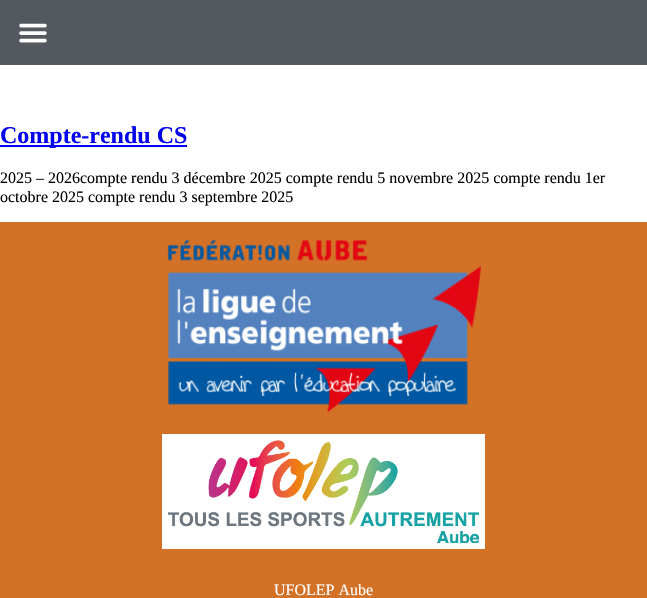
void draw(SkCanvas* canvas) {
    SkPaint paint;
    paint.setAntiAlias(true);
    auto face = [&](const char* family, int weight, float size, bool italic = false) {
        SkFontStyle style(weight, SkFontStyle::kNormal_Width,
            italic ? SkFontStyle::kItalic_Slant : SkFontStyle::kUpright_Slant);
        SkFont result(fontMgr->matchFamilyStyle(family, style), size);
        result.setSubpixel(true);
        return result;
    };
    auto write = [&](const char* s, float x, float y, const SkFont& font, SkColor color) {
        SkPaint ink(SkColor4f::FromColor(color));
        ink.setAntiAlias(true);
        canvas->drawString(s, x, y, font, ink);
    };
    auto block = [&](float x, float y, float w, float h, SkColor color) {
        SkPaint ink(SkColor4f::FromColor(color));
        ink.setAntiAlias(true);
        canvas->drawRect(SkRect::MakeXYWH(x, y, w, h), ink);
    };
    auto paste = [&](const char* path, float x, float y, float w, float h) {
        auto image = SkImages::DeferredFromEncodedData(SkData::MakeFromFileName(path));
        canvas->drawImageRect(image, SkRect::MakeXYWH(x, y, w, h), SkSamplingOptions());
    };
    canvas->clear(SK_ColorWHITE);
    block(0, 0, 647, 65, SkColorSetRGB(84, 89, 95));
    paste("pic1.png", 19, 23, 28, 20);
    block(0, 145, 187, 2, SkColorSetRGB(0, 0, 238));
    auto kFont1 = face("Liberation Serif", 700, 24);
    write("Compte-rendu CS", 0, 143, kFont1, SkColorSetRGB(0, 0, 238));
    auto kFont2 = face("Liberation Serif", 400, 16);
    write("2025 – 2026compte rendu 3 décembre 2025 compte rendu 5 novembre 2025 compte rendu 1er", 0, 183, kFont2, SK_ColorBLACK);
    write("octobre 2025 compte rendu 3 septembre 2025", 0, 202, kFont2, SK_ColorBLACK);
    block(0, 222, 647, 376, SkColorSetRGB(211, 113, 38));
    paste("pic2.png", 167, 240, 314, 173);
    paint.setStyle(SkPaint::kStroke_Style);
    paint.setStrokeWidth(6);
    paint.setColor(SK_ColorWHITE);
    canvas->drawRect(SkRect::MakeXYWH(165, 437, 317, 109), paint);
    paste("pic3.png", 168, 440, 311, 103);
    write("UFOLEP Aube", 274, 595, kFont2, SK_ColorWHITE);
}
